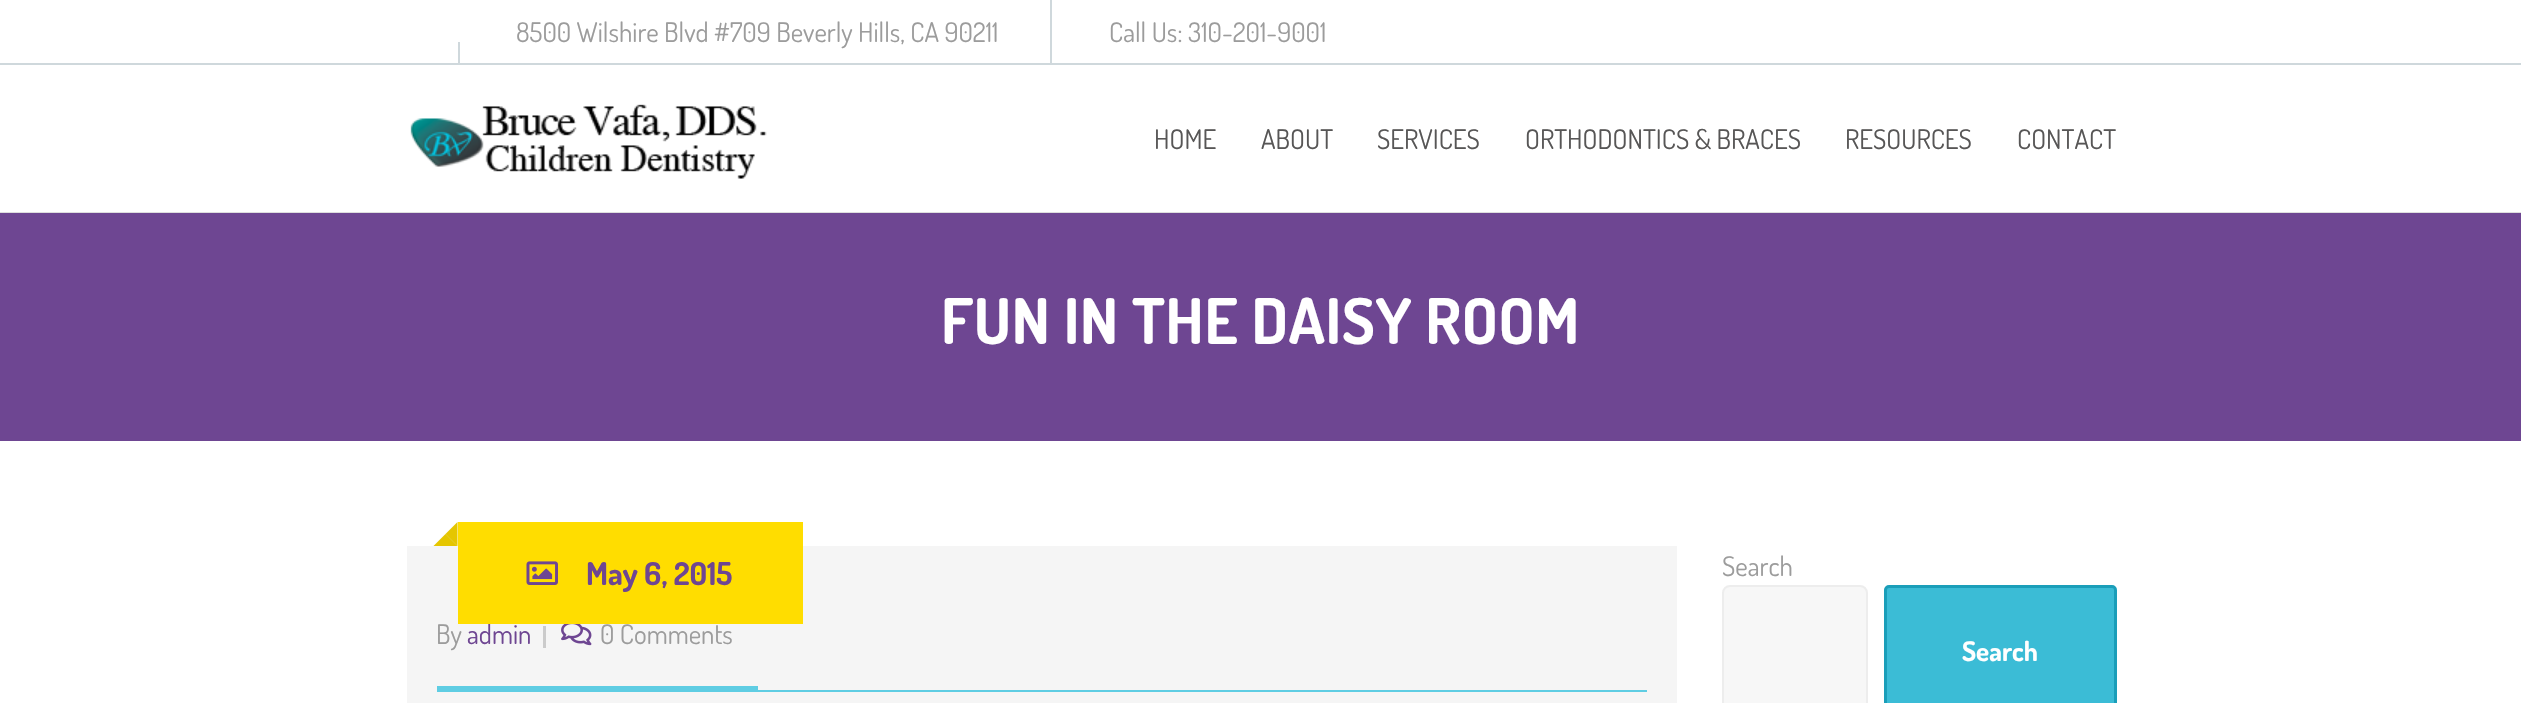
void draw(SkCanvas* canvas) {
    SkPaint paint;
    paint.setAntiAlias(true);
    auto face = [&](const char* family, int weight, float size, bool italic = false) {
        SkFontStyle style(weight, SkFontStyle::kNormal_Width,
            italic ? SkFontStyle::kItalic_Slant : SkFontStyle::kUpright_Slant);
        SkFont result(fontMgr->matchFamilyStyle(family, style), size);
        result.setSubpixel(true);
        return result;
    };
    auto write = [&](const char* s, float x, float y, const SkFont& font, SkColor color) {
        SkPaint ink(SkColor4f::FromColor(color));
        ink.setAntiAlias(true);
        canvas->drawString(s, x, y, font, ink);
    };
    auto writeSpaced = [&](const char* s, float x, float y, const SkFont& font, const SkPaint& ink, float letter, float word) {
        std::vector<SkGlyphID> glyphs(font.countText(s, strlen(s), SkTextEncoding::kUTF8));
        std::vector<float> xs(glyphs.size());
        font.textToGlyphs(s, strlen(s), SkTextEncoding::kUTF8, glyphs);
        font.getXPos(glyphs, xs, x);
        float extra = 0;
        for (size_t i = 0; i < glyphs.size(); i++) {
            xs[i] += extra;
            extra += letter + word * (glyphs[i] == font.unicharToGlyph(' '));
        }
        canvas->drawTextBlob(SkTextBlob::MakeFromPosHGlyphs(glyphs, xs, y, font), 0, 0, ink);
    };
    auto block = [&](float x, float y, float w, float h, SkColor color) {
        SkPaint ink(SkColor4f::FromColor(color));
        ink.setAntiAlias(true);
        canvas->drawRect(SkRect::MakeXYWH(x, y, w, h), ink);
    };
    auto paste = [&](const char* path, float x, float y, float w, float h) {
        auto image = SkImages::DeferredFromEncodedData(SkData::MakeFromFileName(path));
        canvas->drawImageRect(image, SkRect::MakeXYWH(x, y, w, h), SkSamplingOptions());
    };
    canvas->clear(SK_ColorWHITE);
    block(0, 63, 2521, 2, SkColorSetRGB(207, 216, 220));
    auto kFont1 = face("Dosis", 400, 27);
    write("8500 Wilshire Blvd #709 Beverly Hills, CA 90211", 516, 42, kFont1, SkColorSetRGB(156, 156, 156));
    block(1050, 0, 2, 63, SkColorSetRGB(207, 216, 220));
    write("Call Us: 310-201-9001", 1109, 42, kFont1, SkColorSetRGB(156, 156, 156));
    block(458, 42, 2, 21, SkColorSetRGB(207, 216, 220));
    block(0, 212, 2521, 1, SkColorSetRGB(222, 222, 222));
    paste("pic1.png", 410, 104, 357, 75);
    write("HOME", 1154, 149, kFont1, SkColorSetRGB(87, 86, 86));
    write("ABOUT", 1261, 149, kFont1, SkColorSetRGB(87, 86, 86));
    write("SERVICES", 1377, 149, kFont1, SkColorSetRGB(87, 86, 86));
    write("ORTHODONTICS & BRACES", 1525, 149, kFont1, SkColorSetRGB(87, 86, 86));
    write("RESOURCES", 1845, 149, kFont1, SkColorSetRGB(87, 86, 86));
    write("CONTACT", 2017, 149, kFont1, SkColorSetRGB(87, 86, 86));
    block(0, 213, 2521, 228, SkColorSetRGB(110, 70, 146));
    auto kFont2 = face("Dosis", 700, 63);
    paint.setColor(SK_ColorWHITE);
    writeSpaced("FUN IN THE DAISY ROOM", 941, 344, kFont2, paint, 0.6f, 0);
    block(407, 546, 1270, 157, SkColorSetRGB(245, 245, 245));
    write("admin", 467, 644, kFont1, SkColorSetRGB(110, 70, 146));
    block(458, 522, 345, 102, SkColorSetRGB(255, 221, 0));
    paint.setColor(SkColorSetRGB(255, 221, 0));
    canvas->drawPath(SkPathBuilder().moveTo(457.5f, 522).lineTo(457.5f, 546).lineTo(445.5f, 534).close().detach(), paint);
    canvas->drawPath(SkPathBuilder().moveTo(457.5f, 546).lineTo(433.5f, 546).lineTo(445.5f, 534).close().detach(), paint);
    paint.setColor(SkColorSetARGB(26, 0, 0, 0));
    canvas->drawPath(SkPathBuilder().moveTo(457.5f, 522).lineTo(457.5f, 546).lineTo(445.5f, 534).close().detach(), paint);
    canvas->drawPath(SkPathBuilder().moveTo(457.5f, 546).lineTo(433.5f, 546).lineTo(445.5f, 534).close().detach(), paint);
    paste("pic2.png", 526, 561, 32, 24);
    auto kFont3 = face("Dosis", 700, 31.5f);
    write("May 6, 2015", 586, 585, kFont3, SkColorSetRGB(110, 70, 146));
    block(437, 690, 1210, 2, SkColorSetRGB(95, 205, 227));
    write("By", 436, 644, kFont1, SkColorSetRGB(156, 156, 156));
    block(543, 626, 3, 22, SkColorSetRGB(203, 203, 203));
    paste("pic3.png", 561, 624, 31, 22);
    write("0 Comments", 600, 644, kFont1, SkColorSetRGB(156, 156, 156));
    block(437, 686, 321, 4, SkColorSetRGB(95, 205, 227));
    write("Search", 1722, 576, kFont1, SkColorSetRGB(156, 156, 156));
    paint.setColor(SkColorSetRGB(247, 247, 247));
    canvas->drawRoundRect(SkRect::MakeXYWH(1723, 586, 144, 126), 7, 7, paint);
    paint.setStyle(SkPaint::kStroke_Style);
    paint.setStrokeWidth(2);
    paint.setColor(SkColorSetRGB(237, 237, 237));
    canvas->drawRoundRect(SkRect::MakeXYWH(1723, 586, 144, 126), 7, 7, paint);
    paint.setStyle(SkPaint::kFill_Style);
    paint.setColor(SkColorSetRGB(59, 188, 214));
    canvas->drawRoundRect(SkRect::MakeXYWH(1885.5f, 586.5f, 230, 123), 3.5f, 3.5f, paint);
    paint.setStyle(SkPaint::kStroke_Style);
    paint.setStrokeWidth(3);
    paint.setColor(SkColorSetRGB(26, 158, 185));
    canvas->drawRoundRect(SkRect::MakeXYWH(1885.5f, 586.5f, 230, 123), 3.5f, 3.5f, paint);
    auto kFont4 = face("Dosis", 700, 27);
    write("Search", 1962, 661, kFont4, SK_ColorWHITE);
}
